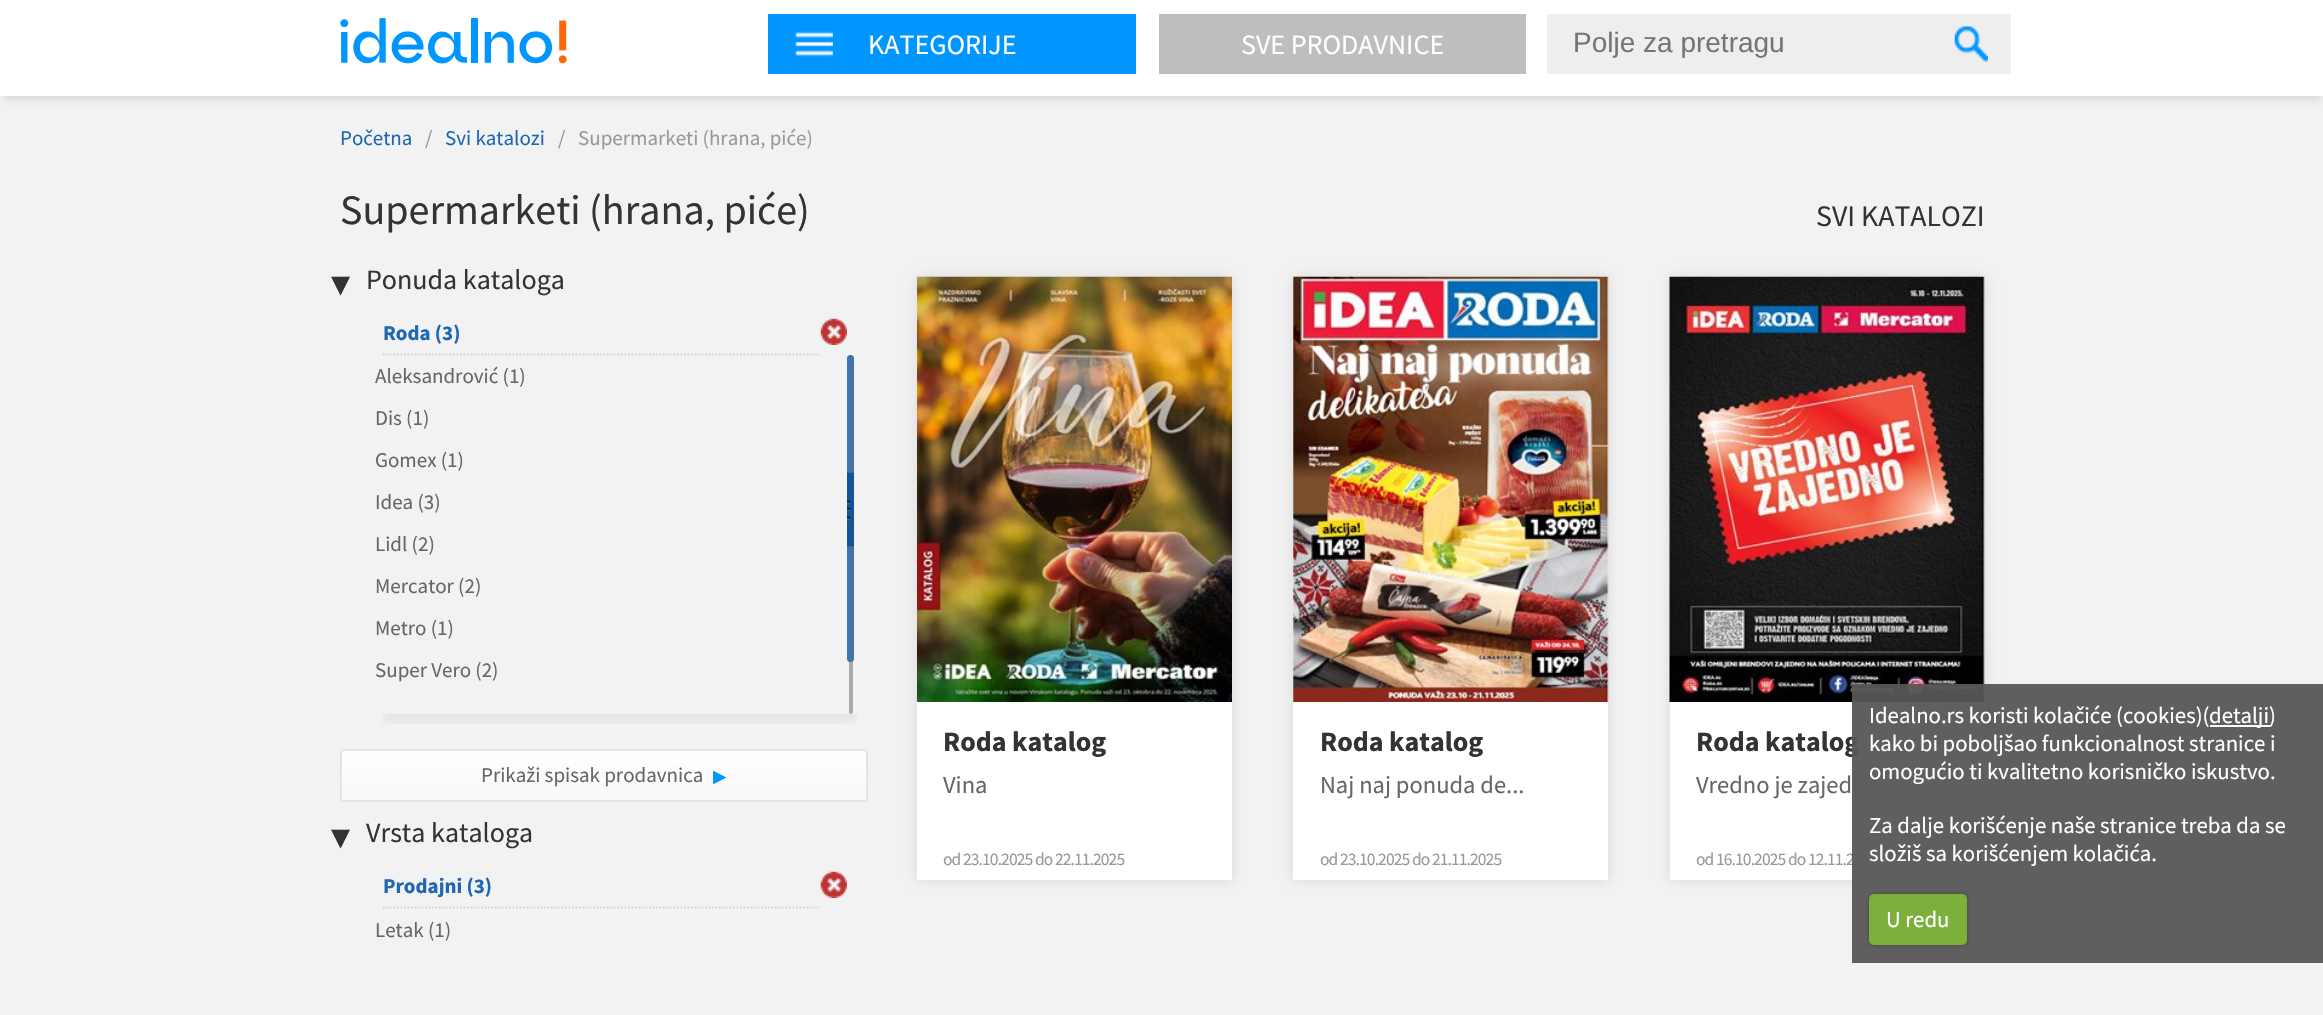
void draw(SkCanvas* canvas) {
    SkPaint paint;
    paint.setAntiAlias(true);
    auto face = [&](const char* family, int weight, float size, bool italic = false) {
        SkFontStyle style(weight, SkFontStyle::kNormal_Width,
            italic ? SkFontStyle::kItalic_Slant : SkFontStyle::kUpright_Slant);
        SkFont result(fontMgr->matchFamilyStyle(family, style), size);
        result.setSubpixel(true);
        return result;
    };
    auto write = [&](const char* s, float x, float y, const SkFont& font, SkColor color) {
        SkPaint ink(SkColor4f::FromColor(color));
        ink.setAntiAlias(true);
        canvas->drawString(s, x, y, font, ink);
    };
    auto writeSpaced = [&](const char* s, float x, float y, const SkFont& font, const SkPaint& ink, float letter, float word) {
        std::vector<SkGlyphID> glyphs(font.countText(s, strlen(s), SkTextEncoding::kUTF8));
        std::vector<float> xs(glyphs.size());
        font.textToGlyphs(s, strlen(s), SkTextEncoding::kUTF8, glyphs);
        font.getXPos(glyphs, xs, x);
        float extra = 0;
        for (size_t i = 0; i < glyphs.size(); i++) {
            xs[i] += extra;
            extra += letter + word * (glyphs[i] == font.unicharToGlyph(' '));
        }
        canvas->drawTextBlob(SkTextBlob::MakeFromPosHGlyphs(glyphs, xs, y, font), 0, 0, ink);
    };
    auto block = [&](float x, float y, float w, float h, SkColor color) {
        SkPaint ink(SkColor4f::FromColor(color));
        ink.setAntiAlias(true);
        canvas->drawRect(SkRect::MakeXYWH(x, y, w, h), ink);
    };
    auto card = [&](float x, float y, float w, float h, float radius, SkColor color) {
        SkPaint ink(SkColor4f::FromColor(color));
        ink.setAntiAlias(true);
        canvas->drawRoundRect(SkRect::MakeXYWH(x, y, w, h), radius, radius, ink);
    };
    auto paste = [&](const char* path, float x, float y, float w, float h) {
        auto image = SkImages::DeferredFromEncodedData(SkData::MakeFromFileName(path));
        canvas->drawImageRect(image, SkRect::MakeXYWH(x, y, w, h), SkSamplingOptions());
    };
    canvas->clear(SkColorSetRGB(242, 242, 242));
    paint.setColor(SkColorSetARGB(26, 0, 0, 0));
    paint.setMaskFilter(SkMaskFilter::MakeBlur(kNormal_SkBlurStyle, 3.5f));
    canvas->drawRect(SkRect::MakeXYWH(4, 2, 2317, 98), paint);
    paint.setMaskFilter(nullptr);
    block(0, 0, 2323, 96, SK_ColorWHITE);
    paste("pic1.png", 340, 18, 227, 46);
    block(768, 14, 368, 60, SkColorSetRGB(0, 150, 255));
    paste("pic2.png", 794, 31, 39, 26);
    auto kFont1 = face("Source Sans Pro", 400, 28);
    write("KATEGORIJE", 868, 54, kFont1, SK_ColorWHITE);
    block(1159, 14, 367, 60, SkColorSetRGB(190, 190, 190));
    write("SVE PRODAVNICE", 1241, 54, kFont1, SK_ColorWHITE);
    block(1547, 14, 464, 60, SkColorSetRGB(238, 238, 238));
    auto kFont2 = face("Liberation Sans", 400, 28);
    write("Polje za pretragu", 1573, 52, kFont2, SkColorSetRGB(117, 117, 117));
    paste("pic3.png", 1954, 26, 34, 36);
    auto kFont3 = face("Source Sans Pro", 400, 21);
    write("Početna", 340, 145, kFont3, SkColorSetRGB(30, 103, 179));
    write("/", 425, 145, kFont3, SkColorSetRGB(153, 153, 153));
    write("Svi katalozi", 445, 145, kFont3, SkColorSetRGB(30, 103, 179));
    write("/", 558, 145, kFont3, SkColorSetRGB(153, 153, 153));
    write("Supermarketi (hrana, piće)", 578, 145, kFont3, SkColorSetRGB(153, 153, 153));
    auto kFont4 = face("Source Sans Pro", 400, 42);
    write("Supermarketi (hrana, piće)", 340, 224, kFont4, SkColorSetRGB(51, 51, 51));
    auto kFont5 = face("DejaVu Sans", 400, 38);
    write("▾", 331, 296, kFont5, SkColorSetRGB(51, 51, 51));
    write("Ponuda kataloga", 366, 289, kFont1, SkColorSetRGB(51, 51, 51));
    paint.setStyle(SkPaint::kStroke_Style);
    paint.setStrokeWidth(1.8f);
    paint.setColor(SkColorSetRGB(210, 210, 211));
    paint.setPathEffect(SkDashPathEffect::Make({{1.75f, 1.75f}}, 0));
    canvas->drawPath(SkPathBuilder().moveTo(383, 354.5f).lineTo(821, 354.5f).detach(), paint);
    paint.setPathEffect(nullptr);
    auto kFont6 = face("Source Sans Pro", 700, 21);
    write("Roda (3)", 383, 340, kFont6, SkColorSetRGB(30, 103, 179));
    paste("pic4.png", 820, 318, 27, 27);
    canvas->save();
    canvas->clipRect(SkRect::MakeXYWH(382, 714, 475, 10));
    paint.setStyle(SkPaint::kFill_Style);
    paint.setColor(SkColorSetARGB(13, 0, 0, 0));
    paint.setMaskFilter(SkMaskFilter::MakeBlur(kNormal_SkBlurStyle, 4.5f));
    canvas->drawRect(SkRect::MakeXYWH(383, 382, 473, 341), paint);
    paint.setMaskFilter(nullptr);
    canvas->restore();
    write("Aleksandrović (1)", 375, 383, kFont3, SkColorSetRGB(102, 102, 102));
    write("Dis (1)", 375, 425, kFont3, SkColorSetRGB(102, 102, 102));
    write("Gomex (1)", 375, 467, kFont3, SkColorSetRGB(102, 102, 102));
    write("Idea (3)", 375, 509, kFont3, SkColorSetRGB(102, 102, 102));
    write("Lidl (2)", 375, 551, kFont3, SkColorSetRGB(102, 102, 102));
    write("Mercator (2)", 375, 593, kFont3, SkColorSetRGB(102, 102, 102));
    write("Metro (1)", 375, 635, kFont3, SkColorSetRGB(102, 102, 102));
    write("Super Vero (2)", 375, 677, kFont3, SkColorSetRGB(102, 102, 102));
    card(849, 355, 4, 359, 2, SkColorSetRGB(170, 170, 170));
    card(847, 355, 7, 307, 3.5f, SkColorSetRGB(64, 116, 170));
    paste("pic5.png", 847, 472, 7, 75);
    canvas->save();
    canvas->clipPath(SkPathBuilder().moveTo(344, 749).lineTo(864, 749).cubicTo(866, 749, 868, 751, 868, 753).lineTo(868, 798).cubicTo(868, 800, 866, 802, 864, 802).lineTo(344, 802).cubicTo(342, 802, 340, 800, 340, 798).lineTo(340, 753).cubicTo(340, 751, 342, 749, 344, 749).close().detach(), true);
    {
        const SkColor colors[] = {SK_ColorWHITE, SkColorSetRGB(248, 248, 248)};
        const float stops[] = {0, 1};
        const SkPoint ends[] = {{604, 751}, {604, 800}};
        paint.setShader(SkGradientShader::MakeLinear(ends, colors, stops, 2, SkTileMode::kClamp));
        paint.setAlpha(255);
    }
    canvas->drawRect(SkRect::MakeXYWH(340, 751, 528, 49), paint);
    canvas->restore();
    paint.setStyle(SkPaint::kStroke_Style);
    paint.setStrokeWidth(2);
    paint.setShader(nullptr);
    paint.setColor(SkColorSetRGB(227, 227, 227));
    canvas->drawRoundRect(SkRect::MakeXYWH(341, 750, 526, 51), 3, 3, paint);
    write("Prikaži spisak prodavnica", 481, 782, kFont3, SkColorSetRGB(102, 102, 102));
    auto kFont7 = face("DejaVu Sans", 400, 17.5f);
    write("▶", 713, 782, kFont7, SkColorSetRGB(0, 150, 255));
    write("▾", 331, 849, kFont5, SkColorSetRGB(51, 51, 51));
    write("Vrsta kataloga", 366, 842, kFont1, SkColorSetRGB(51, 51, 51));
    paint.setStrokeWidth(1.8f);
    paint.setColor(SkColorSetRGB(210, 210, 211));
    paint.setPathEffect(SkDashPathEffect::Make({{1.75f, 1.75f}}, 0));
    canvas->drawPath(SkPathBuilder().moveTo(383, 907.5f).lineTo(821, 907.5f).detach(), paint);
    paint.setPathEffect(nullptr);
    write("Prodajni (3)", 383, 893, kFont6, SkColorSetRGB(30, 103, 179));
    paste("pic4.png", 820, 871, 27, 27);
    write("Letak (1)", 375, 937, kFont3, SkColorSetRGB(102, 102, 102));
    auto kFont8 = face("Source Sans Pro", 400, 29.75f);
    write("SVI KATALOZI", 1816, 226, kFont8, SkColorSetRGB(51, 51, 51));
    paint.setStyle(SkPaint::kFill_Style);
    paint.setColor(SkColorSetARGB(26, 0, 0, 0));
    paint.setMaskFilter(SkMaskFilter::MakeBlur(kNormal_SkBlurStyle, 6));
    canvas->drawRect(SkRect::MakeXYWH(917, 277, 315, 603), paint);
    paint.setMaskFilter(nullptr);
    block(917, 702, 315, 178, SK_ColorWHITE);
    paste("pic6.png", 917, 276, 315, 426);
    auto kFont9 = face("Source Sans Pro", 700, 28);
    write("Roda katalog", 943, 751, kFont9, SkColorSetRGB(51, 51, 51));
    auto kFont10 = face("Source Sans Pro", 400, 24.5f);
    write("Vina", 943, 793, kFont10, SkColorSetRGB(102, 102, 102));
    auto kFont11 = face("Source Sans Pro", 400, 17.5f);
    paint.setColor(SkColorSetRGB(153, 153, 153));
    writeSpaced("od 23.10.2025 do 22.11.2025", 943, 865, kFont11, paint, -0.9f, 0);
    paint.setColor(SkColorSetARGB(26, 0, 0, 0));
    paint.setMaskFilter(SkMaskFilter::MakeBlur(kNormal_SkBlurStyle, 6));
    canvas->drawRect(SkRect::MakeXYWH(1293, 277, 315, 603), paint);
    paint.setMaskFilter(nullptr);
    block(1293, 277, 315, 603, SK_ColorWHITE);
    paste("pic7.png", 1293, 276, 316, 426);
    write("Roda katalog", 1320, 751, kFont9, SkColorSetRGB(51, 51, 51));
    write("Naj naj ponuda de...", 1320, 793, kFont10, SkColorSetRGB(102, 102, 102));
    paint.setColor(SkColorSetRGB(153, 153, 153));
    writeSpaced("od 23.10.2025 do 21.11.2025", 1320, 865, kFont11, paint, -0.9f, 0);
    paint.setColor(SkColorSetARGB(26, 0, 0, 0));
    paint.setMaskFilter(SkMaskFilter::MakeBlur(kNormal_SkBlurStyle, 6));
    canvas->drawRect(SkRect::MakeXYWH(1670, 277, 315, 603), paint);
    paint.setMaskFilter(nullptr);
    block(1670, 277, 315, 603, SK_ColorWHITE);
    paste("pic8.png", 1669, 276, 316, 426);
    write("Roda katalog", 1696, 751, kFont9, SkColorSetRGB(51, 51, 51));
    write("Vredno je zajed", 1696, 793, kFont10, SkColorSetRGB(102, 102, 102));
    paint.setColor(SkColorSetRGB(153, 153, 153));
    writeSpaced("od 16.10.2025 do 12.11.2", 1696, 865, kFont11, paint, -0.9f, 0);
    block(1852, 684, 471, 279, SkColorSetARGB(242, 86, 86, 86));
    auto kFont12 = face("Source Sans Pro", 400, 22.75f);
    write("Idealno.rs koristi kolačiće (cookies)(", 1869, 723, kFont12, SK_ColorWHITE);
    block(2210, 725, 60, 2, SK_ColorWHITE);
    write("detalji)", 2209, 723, kFont12, SK_ColorWHITE);
    write("kako bi poboljšao funkcionalnost stranice i", 1869, 751, kFont12, SK_ColorWHITE);
    write("omogućio ti kvalitetno korisničko iskustvo.", 1869, 779, kFont12, SK_ColorWHITE);
    write("Za dalje korišćenje naše stranice treba da se", 1869, 833, kFont12, SK_ColorWHITE);
    write("složiš sa korišćenjem kolačića.", 1869, 861, kFont12, SK_ColorWHITE);
    paint.setColor(SkColorSetARGB(64, 0, 0, 0));
    paint.setMaskFilter(SkMaskFilter::MakeBlur(kNormal_SkBlurStyle, 2));
    canvas->drawRoundRect(SkRect::MakeXYWH(1869, 894, 98, 51), 5, 5, paint);
    paint.setMaskFilter(nullptr);
    card(1869, 894, 98, 51, 5, SkColorSetRGB(125, 175, 59));
    write("U redu", 1886, 927, kFont12, SK_ColorWHITE);
}
